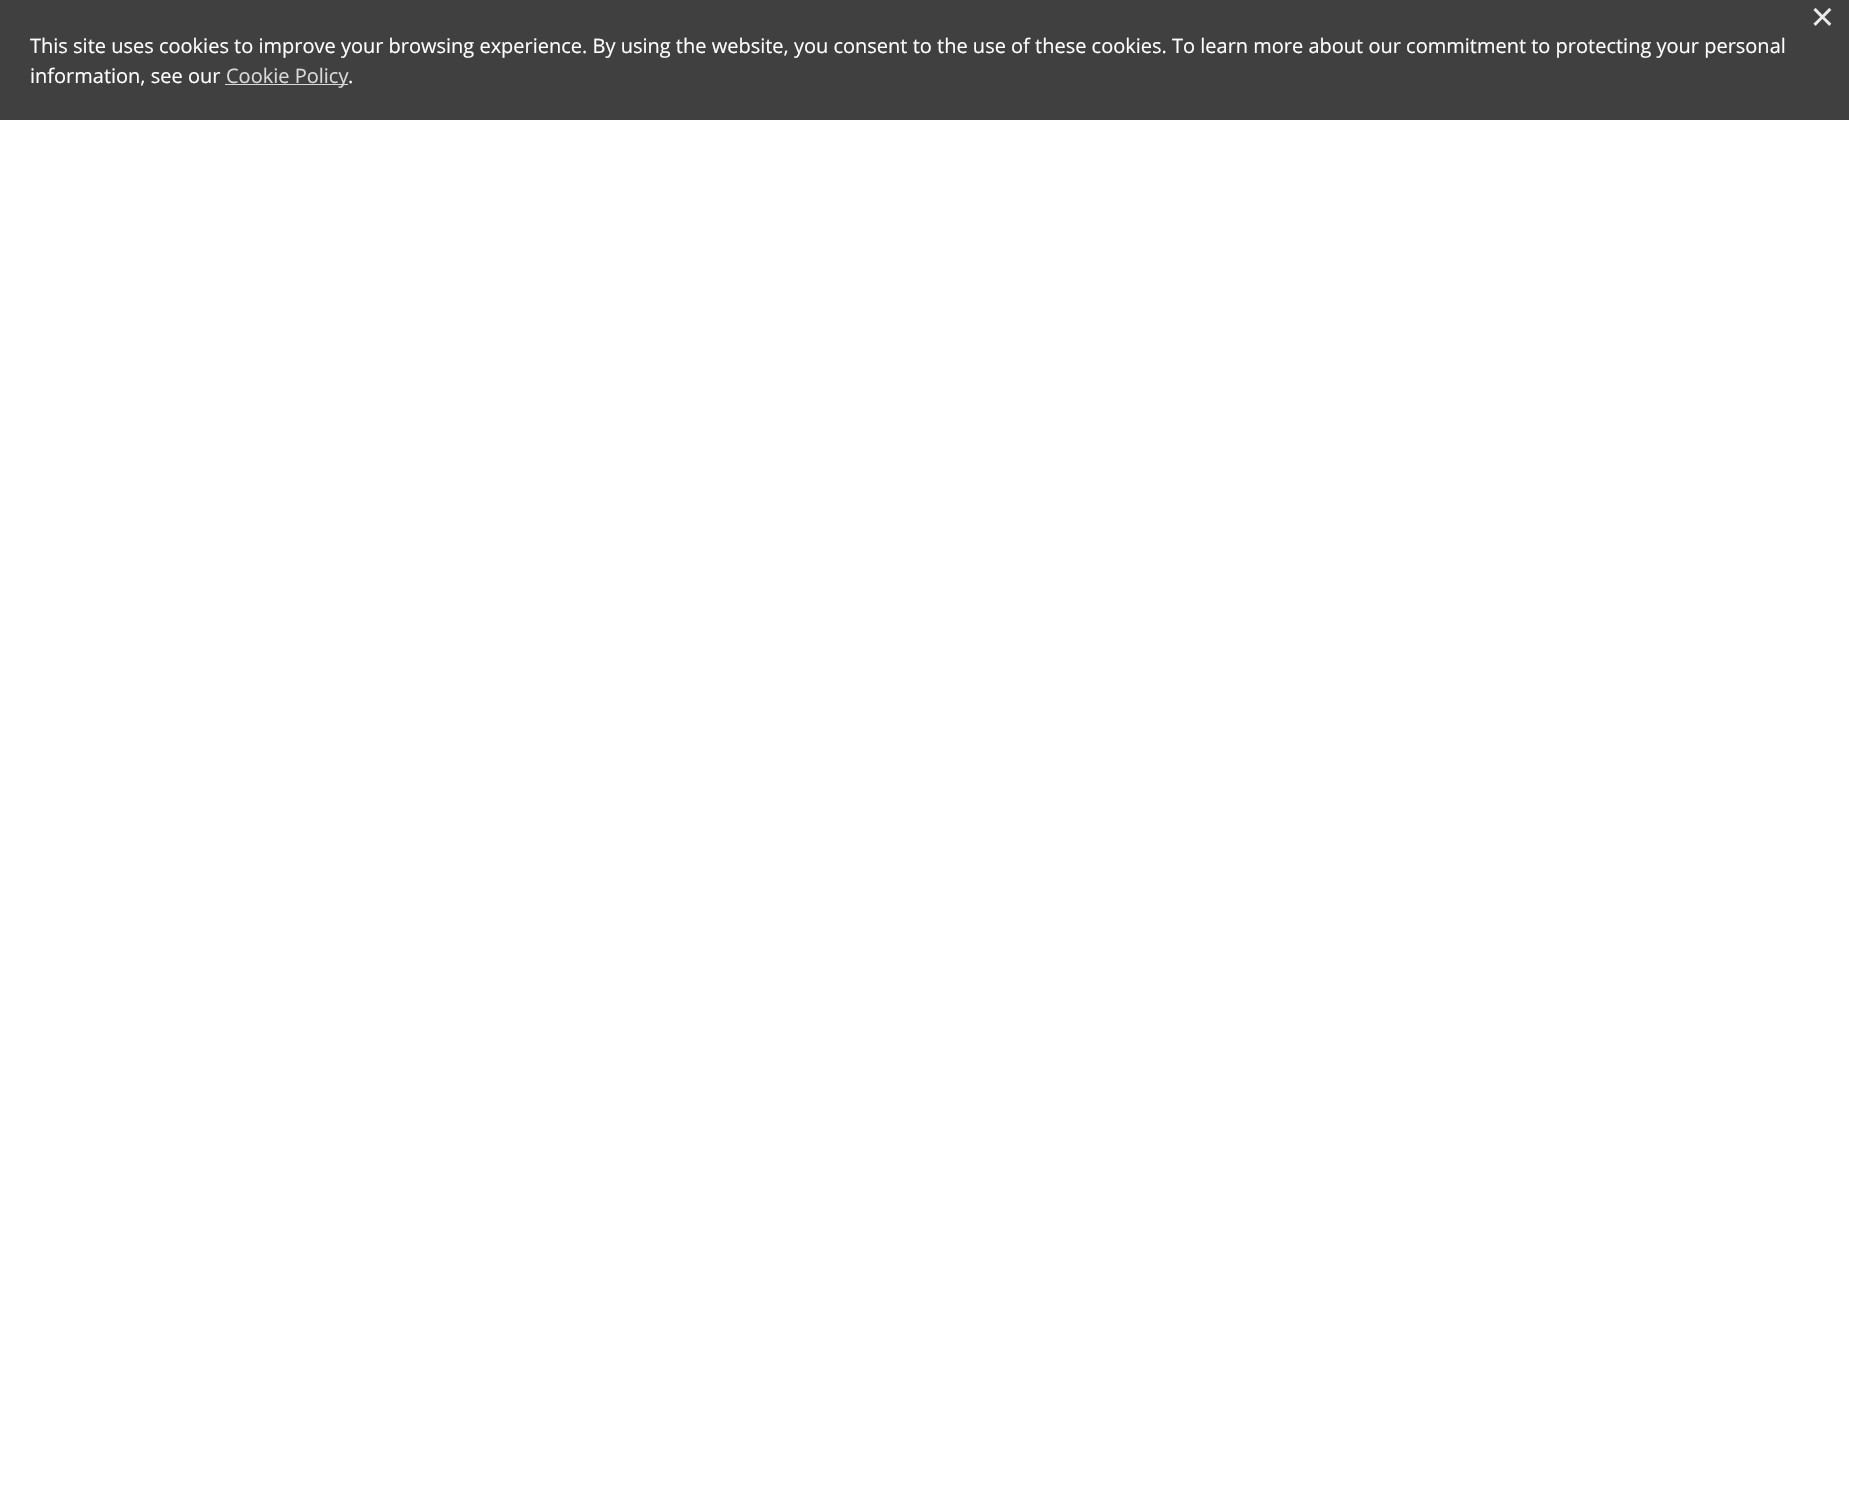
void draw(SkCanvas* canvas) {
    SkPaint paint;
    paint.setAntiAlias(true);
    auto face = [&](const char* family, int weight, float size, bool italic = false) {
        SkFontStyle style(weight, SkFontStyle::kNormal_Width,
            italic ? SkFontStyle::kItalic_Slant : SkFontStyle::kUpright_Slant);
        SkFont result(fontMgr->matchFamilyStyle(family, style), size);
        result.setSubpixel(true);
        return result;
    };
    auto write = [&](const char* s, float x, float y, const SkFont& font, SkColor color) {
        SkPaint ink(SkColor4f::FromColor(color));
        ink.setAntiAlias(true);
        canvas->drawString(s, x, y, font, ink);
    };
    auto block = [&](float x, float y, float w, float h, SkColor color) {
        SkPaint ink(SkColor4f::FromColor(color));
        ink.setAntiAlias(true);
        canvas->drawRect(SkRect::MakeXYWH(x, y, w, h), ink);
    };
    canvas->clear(SK_ColorWHITE);
    block(0, 0, 1849, 120, SkColorSetRGB(64, 64, 64));
    auto kFont1 = face("Open Sans", 400, 40);
    write("×", 1811, 31, kFont1, SkColorSetRGB(236, 236, 236));
    auto kFont2 = face("Open Sans", 400, 20);
    write("This site uses cookies to improve your browsing experience. By using the website, you consent to the use of these cookies. To learn more about our commitment to protecting your personal", 30, 53, kFont2, SK_ColorWHITE);
    write("information, see our", 30, 83, kFont2, SK_ColorWHITE);
    block(225, 84, 123, 1, SkColorSetRGB(217, 217, 217));
    write("Cookie Policy", 226, 83, kFont2, SkColorSetRGB(217, 217, 217));
    write(".", 348, 83, kFont2, SK_ColorWHITE);
}
